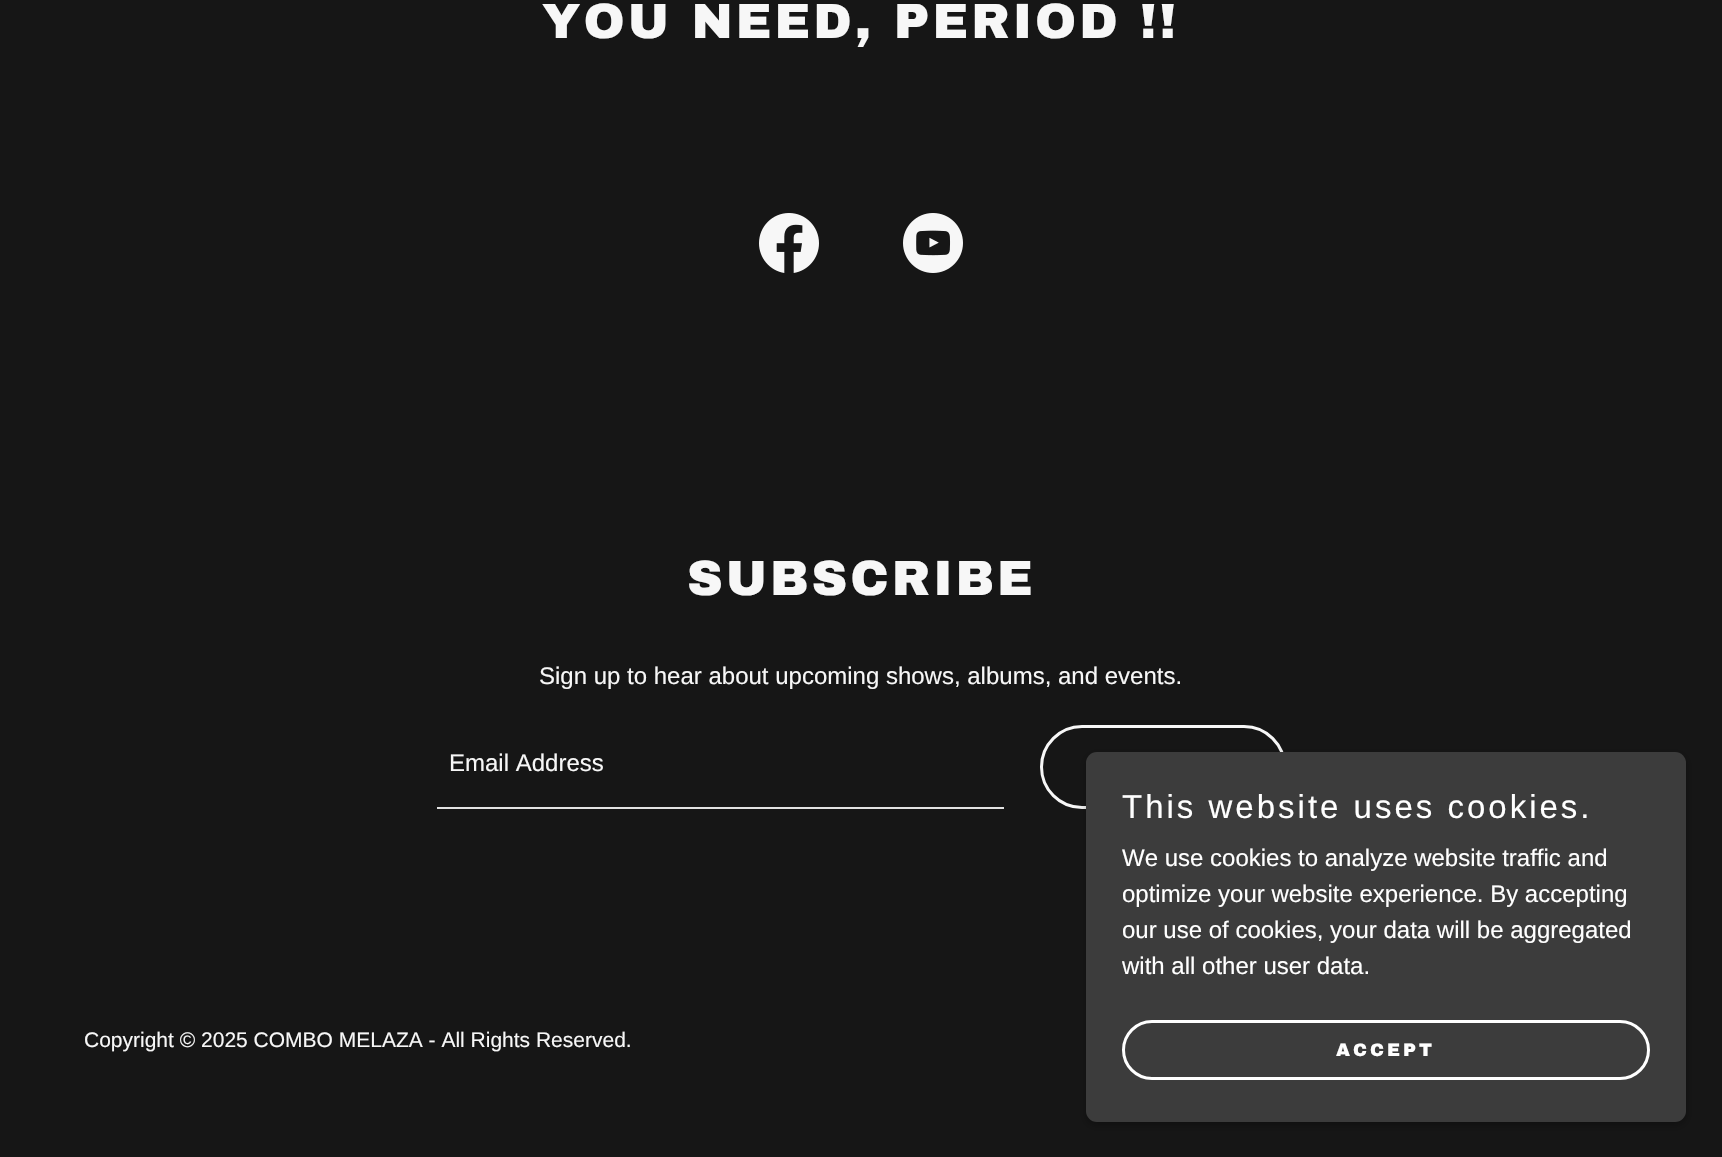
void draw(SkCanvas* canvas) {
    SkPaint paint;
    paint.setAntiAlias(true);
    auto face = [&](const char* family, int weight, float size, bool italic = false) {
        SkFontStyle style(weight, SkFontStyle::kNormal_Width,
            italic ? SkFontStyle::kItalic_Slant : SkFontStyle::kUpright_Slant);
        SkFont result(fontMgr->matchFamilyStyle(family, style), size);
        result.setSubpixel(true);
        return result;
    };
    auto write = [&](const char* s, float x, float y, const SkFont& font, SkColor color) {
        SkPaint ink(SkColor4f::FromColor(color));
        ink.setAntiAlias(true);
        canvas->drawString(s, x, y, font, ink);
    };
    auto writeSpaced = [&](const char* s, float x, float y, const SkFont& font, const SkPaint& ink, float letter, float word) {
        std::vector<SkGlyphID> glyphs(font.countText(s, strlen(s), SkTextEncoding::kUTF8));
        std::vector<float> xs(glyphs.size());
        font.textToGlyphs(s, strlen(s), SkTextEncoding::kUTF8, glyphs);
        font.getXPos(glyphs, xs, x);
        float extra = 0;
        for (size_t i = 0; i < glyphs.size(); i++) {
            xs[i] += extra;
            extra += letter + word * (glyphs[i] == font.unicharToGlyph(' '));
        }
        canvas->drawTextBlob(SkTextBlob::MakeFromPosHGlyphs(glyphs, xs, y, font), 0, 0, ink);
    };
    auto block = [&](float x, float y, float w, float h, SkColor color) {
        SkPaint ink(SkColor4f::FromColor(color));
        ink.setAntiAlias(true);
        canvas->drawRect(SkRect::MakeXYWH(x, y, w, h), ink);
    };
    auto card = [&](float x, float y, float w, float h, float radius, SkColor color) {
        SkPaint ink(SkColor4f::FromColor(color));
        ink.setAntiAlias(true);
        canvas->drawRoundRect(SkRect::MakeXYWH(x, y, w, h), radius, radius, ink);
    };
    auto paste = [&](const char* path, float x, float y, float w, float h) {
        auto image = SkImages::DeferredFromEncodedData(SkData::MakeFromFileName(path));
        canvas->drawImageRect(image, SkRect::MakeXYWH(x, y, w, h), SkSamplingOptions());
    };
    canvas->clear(SkColorSetRGB(22, 22, 22));
    auto kFont1 = face("Archivo Black", 900, 49.5f);
    paint.setColor(SkColorSetRGB(247, 247, 247));
    writeSpaced("YOU NEED, PERIOD !!", 542, 38, kFont1, paint, 3, 0);
    paste("pic1.png", 759, 213, 60, 60);
    paste("pic2.png", 903, 213, 60, 60);
    writeSpaced("SUBSCRIBE", 687, 595, kFont1, paint, 3, 0);
    auto kFont2 = face("Liberation Sans", 400, 24);
    write("Sign up to hear about upcoming shows, albums, and events.", 539, 684, kFont2, SkColorSetRGB(247, 247, 247));
    write("Email Address", 449, 771, kFont2, SkColorSetRGB(247, 247, 247));
    block(437, 807, 567, 2, SkColorSetRGB(226, 226, 226));
    paint.setStyle(SkPaint::kStroke_Style);
    paint.setStrokeWidth(3);
    canvas->drawRoundRect(SkRect::MakeXYWH(1041.5f, 726.5f, 243, 81), 40.5f, 40.5f, paint);
    auto kFont3 = face("Liberation Sans", 400, 21);
    write("Copyright © 2025 COMBO MELAZA - All Rights Reserved.", 84, 1047, kFont3, SkColorSetRGB(247, 247, 247));
    paint.setStyle(SkPaint::kFill_Style);
    paint.setColor(SkColorSetARGB(77, 0, 0, 0));
    paint.setMaskFilter(SkMaskFilter::MakeBlur(kNormal_SkBlurStyle, 4.5f));
    canvas->drawRoundRect(SkRect::MakeXYWH(1086, 755, 600, 370), 11, 11, paint);
    paint.setMaskFilter(nullptr);
    card(1086, 752, 600, 370, 11, SkColorSetRGB(60, 60, 60));
    auto kFont4 = face("Liberation Sans", 400, 33);
    paint.setColor(SK_ColorWHITE);
    writeSpaced("This website uses cookies.", 1122, 818, kFont4, paint, 3, 0);
    write("We use cookies to analyze website traffic and", 1122, 866, kFont2, SK_ColorWHITE);
    write("optimize your website experience. By accepting", 1122, 902, kFont2, SK_ColorWHITE);
    write("our use of cookies, your data will be aggregated", 1122, 938, kFont2, SK_ColorWHITE);
    write("with all other user data.", 1122, 974, kFont2, SK_ColorWHITE);
    paint.setStyle(SkPaint::kStroke_Style);
    canvas->drawRoundRect(SkRect::MakeXYWH(1123.5f, 1021.5f, 525, 57), 28.5f, 28.5f, paint);
    auto kFont5 = face("Archivo Black", 900, 18);
    paint.setStyle(SkPaint::kFill_Style);
    writeSpaced("ACCEPT", 1336, 1056, kFont5, paint, 3, 0);
}
